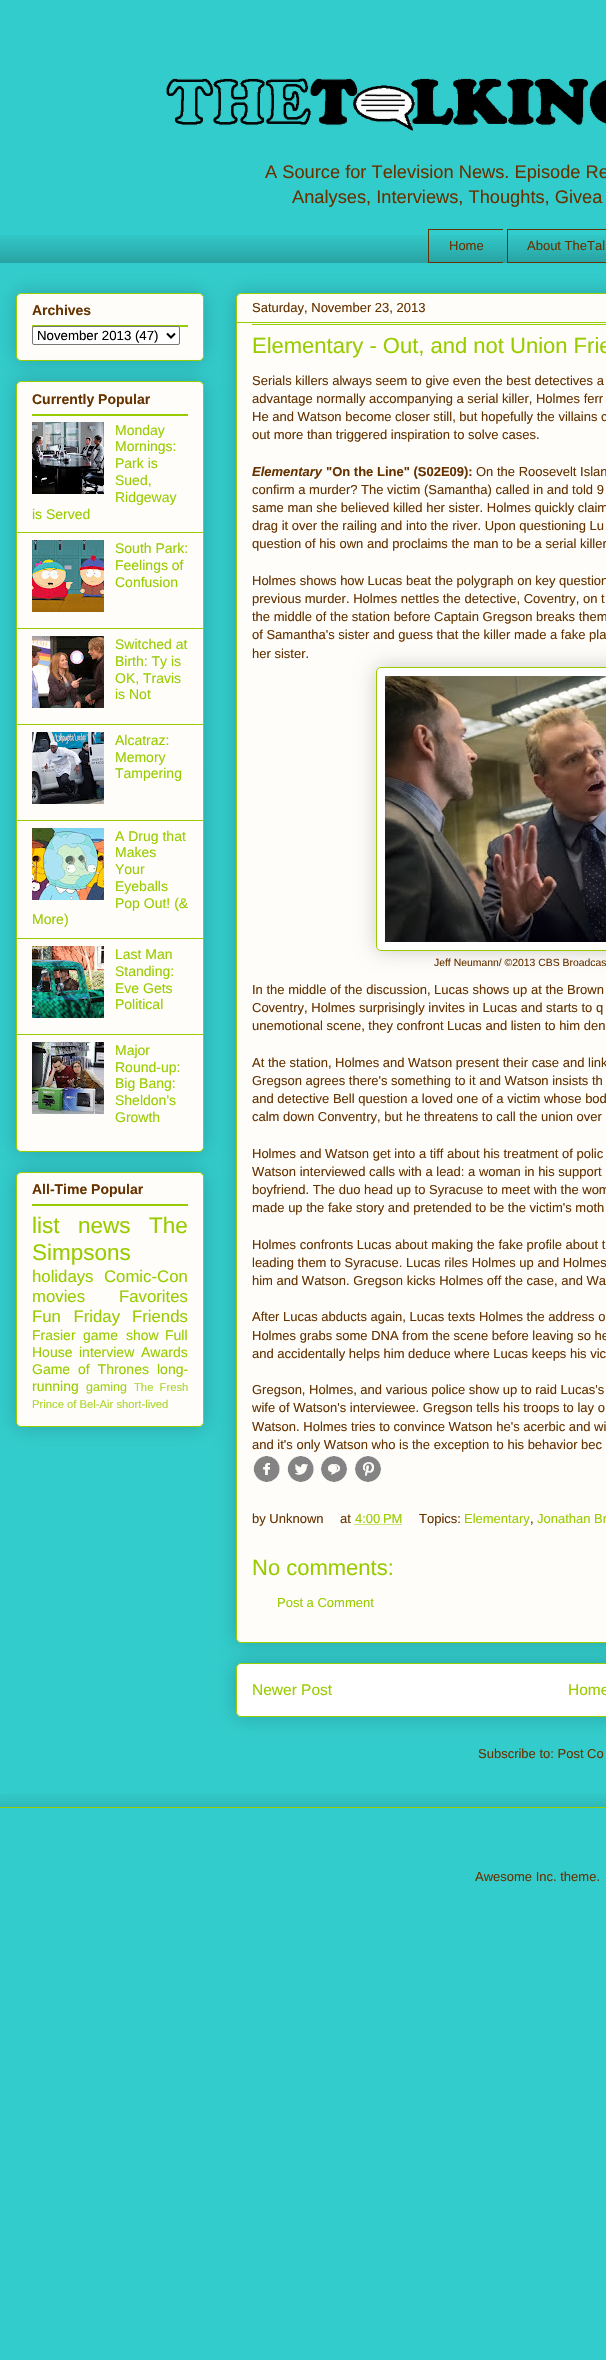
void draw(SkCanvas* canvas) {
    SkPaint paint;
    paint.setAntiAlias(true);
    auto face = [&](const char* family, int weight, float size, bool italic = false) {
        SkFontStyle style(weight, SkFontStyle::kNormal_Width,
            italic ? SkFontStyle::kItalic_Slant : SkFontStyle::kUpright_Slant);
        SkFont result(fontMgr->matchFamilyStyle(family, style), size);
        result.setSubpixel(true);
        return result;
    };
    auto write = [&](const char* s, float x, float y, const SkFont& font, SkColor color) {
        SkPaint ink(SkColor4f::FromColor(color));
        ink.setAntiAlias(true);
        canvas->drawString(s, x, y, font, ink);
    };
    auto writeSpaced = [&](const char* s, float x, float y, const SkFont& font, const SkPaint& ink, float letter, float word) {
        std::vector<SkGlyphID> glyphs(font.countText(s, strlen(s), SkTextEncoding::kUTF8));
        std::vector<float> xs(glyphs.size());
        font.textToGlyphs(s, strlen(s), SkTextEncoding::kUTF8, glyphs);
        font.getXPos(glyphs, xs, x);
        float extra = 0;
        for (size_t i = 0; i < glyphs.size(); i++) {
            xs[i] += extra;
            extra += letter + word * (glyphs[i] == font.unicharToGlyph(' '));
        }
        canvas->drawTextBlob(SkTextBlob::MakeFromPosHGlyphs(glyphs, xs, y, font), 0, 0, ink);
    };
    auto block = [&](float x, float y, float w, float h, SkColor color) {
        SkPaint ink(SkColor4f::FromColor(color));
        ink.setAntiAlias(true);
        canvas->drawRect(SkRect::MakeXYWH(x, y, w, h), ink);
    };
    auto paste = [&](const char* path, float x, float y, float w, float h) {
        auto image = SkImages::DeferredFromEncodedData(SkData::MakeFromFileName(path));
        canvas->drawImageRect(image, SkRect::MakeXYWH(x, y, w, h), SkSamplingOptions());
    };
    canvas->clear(SkColorSetRGB(51, 204, 204));
    paste("pic1.png", 166, 78, 440, 53);
    auto kFont1 = face("Liberation Sans", 400, 18.25f);
    write("A Source for Television News. Episode Re", 265, 178, kFont1, SkColorSetRGB(102, 51, 0));
    write("Analyses, Interviews, Thoughts, Givea", 292, 203, kFont1, SkColorSetRGB(102, 51, 0));
    paste("pic2.png", 0, 235, 606, 28);
    block(428, 229, 75, 1, SkColorSetRGB(102, 51, 0));
    block(428, 262, 75, 1, SkColorSetRGB(102, 51, 0));
    block(428, 229, 1, 34, SkColorSetRGB(102, 51, 0));
    auto kFont2 = face("Liberation Sans", 400, 13);
    write("Home", 449, 250, kFont2, SkColorSetRGB(102, 51, 0));
    block(507, 229, 99, 1, SkColorSetRGB(102, 51, 0));
    block(507, 262, 99, 1, SkColorSetRGB(102, 51, 0));
    block(507, 229, 1, 34, SkColorSetRGB(102, 51, 0));
    write("About TheTal", 527, 250, kFont2, SkColorSetRGB(102, 51, 0));
    paint.setColor(SkColorSetARGB(51, 0, 0, 0));
    paint.setMaskFilter(SkMaskFilter::MakeBlur(kNormal_SkBlurStyle, 10));
    canvas->drawRoundRect(SkRect::MakeXYWH(16, 293, 188, 68), 5, 5, paint);
    paint.setMaskFilter(nullptr);
    paint.setColor(SkColorSetRGB(254, 253, 250));
    canvas->drawRoundRect(SkRect::MakeXYWH(16.5f, 293.5f, 187, 67), 4.5f, 4.5f, paint);
    paint.setStyle(SkPaint::kStroke_Style);
    paint.setStrokeWidth(1);
    paint.setColor(SkColorSetRGB(153, 204, 0));
    canvas->drawRoundRect(SkRect::MakeXYWH(16.5f, 293.5f, 187, 67), 4.5f, 4.5f, paint);
    auto kFont3 = face("Liberation Sans", 700, 14);
    write("Archives", 32, 315, kFont3, SkColorSetRGB(102, 51, 0));
    block(32, 325, 156, 2, SkColorSetRGB(153, 204, 0));
    paint.setStyle(SkPaint::kFill_Style);
    paint.setColor(SK_ColorWHITE);
    canvas->drawRoundRect(SkRect::MakeXYWH(32.5f, 326.5f, 147, 18), 1.5f, 1.5f, paint);
    paint.setStyle(SkPaint::kStroke_Style);
    paint.setColor(SkColorSetRGB(118, 118, 118));
    canvas->drawRoundRect(SkRect::MakeXYWH(32.5f, 326.5f, 147, 18), 1.5f, 1.5f, paint);
    paint.setStrokeWidth(2);
    paint.setColor(SK_ColorBLACK);
    canvas->drawPath(SkPathBuilder().moveTo(167, 333.5f).lineTo(171, 337.5f).lineTo(175, 333.5f).detach(), paint);
    auto kFont4 = face("Liberation Sans", 400, 13.25f);
    write("November 2013 (47)", 37, 340, kFont4, SK_ColorBLACK);
    paint.setStyle(SkPaint::kFill_Style);
    paint.setColor(SkColorSetARGB(51, 0, 0, 0));
    paint.setMaskFilter(SkMaskFilter::MakeBlur(kNormal_SkBlurStyle, 10));
    canvas->drawRoundRect(SkRect::MakeXYWH(16, 381, 188, 771), 5, 5, paint);
    paint.setMaskFilter(nullptr);
    paint.setColor(SkColorSetRGB(254, 253, 250));
    canvas->drawRoundRect(SkRect::MakeXYWH(16.5f, 381.5f, 187, 770), 4.5f, 4.5f, paint);
    paint.setStyle(SkPaint::kStroke_Style);
    paint.setStrokeWidth(1);
    paint.setColor(SkColorSetRGB(153, 204, 0));
    canvas->drawRoundRect(SkRect::MakeXYWH(16.5f, 381.5f, 187, 770), 4.5f, 4.5f, paint);
    write("Currently Popular", 32, 404, kFont3, SkColorSetRGB(102, 51, 0));
    block(32, 414, 156, 2, SkColorSetRGB(153, 204, 0));
    block(17, 532, 186, 1, SkColorSetRGB(153, 204, 0));
    paste("pic3.png", 32, 422, 72, 72);
    auto kFont5 = face("Liberation Sans", 400, 14);
    write("Monday", 115, 435, kFont5, SkColorSetRGB(153, 204, 0));
    write("Mornings:", 115, 451, kFont5, SkColorSetRGB(153, 204, 0));
    write("Park is", 115, 468, kFont5, SkColorSetRGB(153, 204, 0));
    write("Sued,", 115, 485, kFont5, SkColorSetRGB(153, 204, 0));
    write("Ridgeway", 115, 502, kFont5, SkColorSetRGB(153, 204, 0));
    write("is Served", 32, 519, kFont5, SkColorSetRGB(153, 204, 0));
    block(17, 628, 186, 1, SkColorSetRGB(153, 204, 0));
    paste("pic4.png", 32, 540, 72, 72);
    write("South Park:", 115, 553, kFont5, SkColorSetRGB(153, 204, 0));
    write("Feelings of", 115, 570, kFont5, SkColorSetRGB(153, 204, 0));
    write("Confusion", 115, 587, kFont5, SkColorSetRGB(153, 204, 0));
    block(17, 724, 186, 1, SkColorSetRGB(153, 204, 0));
    paste("pic5.png", 32, 636, 72, 72);
    write("Switched at", 115, 649, kFont5, SkColorSetRGB(153, 204, 0));
    write("Birth: Ty is", 115, 666, kFont5, SkColorSetRGB(153, 204, 0));
    write("OK, Travis", 115, 683, kFont5, SkColorSetRGB(153, 204, 0));
    write("is Not", 115, 699, kFont5, SkColorSetRGB(153, 204, 0));
    block(17, 820, 186, 1, SkColorSetRGB(153, 204, 0));
    paste("pic6.png", 32, 732, 72, 72);
    write("Alcatraz:", 115, 745, kFont5, SkColorSetRGB(153, 204, 0));
    write("Memory", 115, 762, kFont5, SkColorSetRGB(153, 204, 0));
    write("Tampering", 115, 778, kFont5, SkColorSetRGB(153, 204, 0));
    block(17, 938, 186, 1, SkColorSetRGB(153, 204, 0));
    paste("pic7.png", 32, 828, 72, 72);
    write("A Drug that", 115, 841, kFont5, SkColorSetRGB(153, 204, 0));
    write("Makes", 115, 857, kFont5, SkColorSetRGB(153, 204, 0));
    write("Your", 115, 874, kFont5, SkColorSetRGB(153, 204, 0));
    write("Eyeballs", 115, 891, kFont5, SkColorSetRGB(153, 204, 0));
    write("Pop Out! (&", 115, 908, kFont5, SkColorSetRGB(153, 204, 0));
    write("More)", 32, 924, kFont5, SkColorSetRGB(153, 204, 0));
    block(17, 1034, 186, 1, SkColorSetRGB(153, 204, 0));
    paste("pic8.png", 32, 946, 72, 72);
    write("Last Man", 115, 959, kFont5, SkColorSetRGB(153, 204, 0));
    write("Standing:", 115, 976, kFont5, SkColorSetRGB(153, 204, 0));
    write("Eve Gets", 115, 993, kFont5, SkColorSetRGB(153, 204, 0));
    write("Political", 115, 1009, kFont5, SkColorSetRGB(153, 204, 0));
    paste("pic9.png", 32, 1042, 72, 72);
    write("Major", 115, 1055, kFont5, SkColorSetRGB(153, 204, 0));
    write("Round-up:", 115, 1072, kFont5, SkColorSetRGB(153, 204, 0));
    write("Big Bang:", 115, 1088, kFont5, SkColorSetRGB(153, 204, 0));
    write("Sheldon's", 115, 1105, kFont5, SkColorSetRGB(153, 204, 0));
    write("Growth", 115, 1122, kFont5, SkColorSetRGB(153, 204, 0));
    paint.setStyle(SkPaint::kFill_Style);
    paint.setColor(SkColorSetARGB(51, 0, 0, 0));
    paint.setMaskFilter(SkMaskFilter::MakeBlur(kNormal_SkBlurStyle, 10));
    canvas->drawRoundRect(SkRect::MakeXYWH(16, 1172, 188, 255), 5, 5, paint);
    paint.setMaskFilter(nullptr);
    paint.setColor(SkColorSetRGB(254, 253, 250));
    canvas->drawRoundRect(SkRect::MakeXYWH(16.5f, 1172.5f, 187, 254), 4.5f, 4.5f, paint);
    paint.setStyle(SkPaint::kStroke_Style);
    paint.setColor(SkColorSetRGB(153, 204, 0));
    canvas->drawRoundRect(SkRect::MakeXYWH(16.5f, 1172.5f, 187, 254), 4.5f, 4.5f, paint);
    write("All-Time Popular", 32, 1194, kFont3, SkColorSetRGB(102, 51, 0));
    block(32, 1204, 156, 2, SkColorSetRGB(153, 204, 0));
    auto kFont6 = face("Liberation Sans", 400, 22.5f);
    write("list", 32, 1233, kFont6, SkColorSetRGB(153, 204, 0));
    write("news", 78, 1233, kFont6, SkColorSetRGB(153, 204, 0));
    write("The", 149, 1233, kFont6, SkColorSetRGB(153, 204, 0));
    write("Simpsons", 32, 1260, kFont6, SkColorSetRGB(153, 204, 0));
    auto kFont7 = face("Liberation Sans", 400, 16.75f);
    write("holidays", 32, 1282, kFont7, SkColorSetRGB(153, 204, 0));
    write("Comic-Con", 104, 1282, kFont7, SkColorSetRGB(153, 204, 0));
    write("movies", 32, 1302, kFont7, SkColorSetRGB(153, 204, 0));
    write("Favorites", 119, 1302, kFont7, SkColorSetRGB(153, 204, 0));
    paint.setStyle(SkPaint::kFill_Style);
    writeSpaced("Fun Friday", 32, 1322, kFont7, paint, 0, 8);
    write("Friends", 132, 1322, kFont7, SkColorSetRGB(153, 204, 0));
    write("Frasier", 32, 1340, kFont5, SkColorSetRGB(153, 204, 0));
    writeSpaced("game show", 83, 1340, kFont5, paint, 0, 4);
    write("Full", 165, 1340, kFont5, SkColorSetRGB(153, 204, 0));
    write("House", 32, 1357, kFont5, SkColorSetRGB(153, 204, 0));
    write("interview", 79, 1357, kFont5, SkColorSetRGB(153, 204, 0));
    write("Awards", 141, 1357, kFont5, SkColorSetRGB(153, 204, 0));
    writeSpaced("Game of Thrones", 32, 1374, kFont5, paint, 0, 4);
    write("long-", 157, 1374, kFont5, SkColorSetRGB(153, 204, 0));
    write("running", 32, 1391, kFont5, SkColorSetRGB(153, 204, 0));
    auto kFont8 = face("Liberation Sans", 400, 12.5f);
    write("gaming", 86, 1391, kFont8, SkColorSetRGB(163, 209, 25));
    auto kFont9 = face("Liberation Sans", 400, 11.25f);
    paint.setColor(SkColorSetRGB(173, 214, 50));
    writeSpaced("The Fresh", 134, 1391, kFont9, paint, 0, 3);
    write("Prince of Bel-Air short-lived", 32, 1408, kFont9, SkColorSetRGB(173, 214, 50));
    paint.setColor(SkColorSetARGB(51, 0, 0, 0));
    paint.setMaskFilter(SkMaskFilter::MakeBlur(kNormal_SkBlurStyle, 10));
    canvas->drawRoundRect(SkRect::MakeXYWH(236, 1663, 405, 54), 5, 5, paint);
    paint.setMaskFilter(nullptr);
    paint.setColor(SK_ColorWHITE);
    canvas->drawRoundRect(SkRect::MakeXYWH(236.5f, 1663.5f, 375, 53), 4.5f, 4.5f, paint);
    paint.setStyle(SkPaint::kStroke_Style);
    paint.setColor(SkColorSetRGB(153, 204, 0));
    canvas->drawRoundRect(SkRect::MakeXYWH(236.5f, 1663.5f, 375, 53), 4.5f, 4.5f, paint);
    paint.setStyle(SkPaint::kFill_Style);
    paint.setColor(SkColorSetARGB(51, 0, 0, 0));
    paint.setMaskFilter(SkMaskFilter::MakeBlur(kNormal_SkBlurStyle, 10));
    canvas->drawRoundRect(SkRect::MakeXYWH(236, 293, 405, 1350), 5, 5, paint);
    paint.setMaskFilter(nullptr);
    paint.setColor(SkColorSetRGB(254, 253, 250));
    canvas->drawRoundRect(SkRect::MakeXYWH(236.5f, 293.5f, 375, 1349), 4.5f, 4.5f, paint);
    paint.setStyle(SkPaint::kStroke_Style);
    paint.setColor(SkColorSetRGB(153, 204, 0));
    canvas->drawRoundRect(SkRect::MakeXYWH(236.5f, 293.5f, 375, 1349), 4.5f, 4.5f, paint);
    block(237, 322, 369, 1, SkColorSetRGB(153, 204, 0));
    write("Saturday, November 23, 2013", 252, 312, kFont2, SkColorSetRGB(102, 51, 0));
    block(252, 324, 354, 1, SkColorSetRGB(153, 204, 0));
    auto kFont10 = face("Liberation Sans", 400, 22);
    write("Elementary - Out, and not Union Frie", 252, 353, kFont10, SkColorSetRGB(153, 204, 0));
    write("Serials killers always seem to give even the best detectives a", 252, 385, kFont2, SkColorSetRGB(102, 51, 0));
    write("advantage normally accompanying a serial killer, Holmes ferr", 252, 403, kFont2, SkColorSetRGB(102, 51, 0));
    write("He and Watson become closer still, but hopefully the villains c", 252, 421, kFont2, SkColorSetRGB(102, 51, 0));
    write("out more than triggered inspiration to solve cases.", 252, 439, kFont2, SkColorSetRGB(102, 51, 0));
    auto kFont11 = face("Liberation Sans", 700, 13, true);
    write("Elementary", 252, 476, kFont11, SkColorSetRGB(102, 51, 0));
    auto kFont12 = face("Liberation Sans", 700, 13);
    write("\"On the Line\" (S02E09):", 326, 476, kFont12, SkColorSetRGB(102, 51, 0));
    write("On the Roosevelt Islan", 476, 476, kFont2, SkColorSetRGB(102, 51, 0));
    write("confirm a murder? The victim (Samantha) called in and told 9", 252, 494, kFont2, SkColorSetRGB(102, 51, 0));
    write("same man she believed killed her sister. Holmes quickly claim", 252, 512, kFont2, SkColorSetRGB(102, 51, 0));
    write("drag it over the railing and into the river. Upon questioning Lu", 252, 530, kFont2, SkColorSetRGB(102, 51, 0));
    write("question of his own and proclaims the man to be a serial killer", 252, 548, kFont2, SkColorSetRGB(102, 51, 0));
    write("Holmes shows how Lucas beat the polygraph on key question", 252, 585, kFont2, SkColorSetRGB(102, 51, 0));
    write("previous murder. Holmes nettles the detective, Coventry, on t", 252, 603, kFont2, SkColorSetRGB(102, 51, 0));
    write("the middle of the station before Captain Gregson breaks them", 252, 621, kFont2, SkColorSetRGB(102, 51, 0));
    write("of Samantha's sister and guess that the killer made a fake pla", 252, 639, kFont2, SkColorSetRGB(102, 51, 0));
    write("her sister.", 252, 658, kFont2, SkColorSetRGB(102, 51, 0));
    paint.setStyle(SkPaint::kFill_Style);
    paint.setColor(SkColorSetARGB(51, 0, 0, 0));
    paint.setMaskFilter(SkMaskFilter::MakeBlur(kNormal_SkBlurStyle, 10));
    canvas->drawRoundRect(SkRect::MakeXYWH(376, 667, 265, 284), 5, 5, paint);
    paint.setMaskFilter(nullptr);
    paint.setColor(SK_ColorWHITE);
    canvas->drawRoundRect(SkRect::MakeXYWH(376.5f, 667.5f, 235, 283), 4.5f, 4.5f, paint);
    paint.setStyle(SkPaint::kStroke_Style);
    paint.setColor(SkColorSetRGB(153, 204, 0));
    canvas->drawRoundRect(SkRect::MakeXYWH(376.5f, 667.5f, 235, 283), 4.5f, 4.5f, paint);
    paste("pic10.png", 385, 676, 221, 266);
    auto kFont13 = face("Liberation Sans", 400, 10.4f);
    write("Jeff Neumann/ ©2013 CBS Broadcas", 434, 966, kFont13, SkColorSetRGB(102, 51, 0));
    write("In the middle of the discussion, Lucas shows up at the Brown", 252, 994, kFont2, SkColorSetRGB(102, 51, 0));
    write("Coventry, Holmes surprisingly invites in Lucas and starts to q", 252, 1012, kFont2, SkColorSetRGB(102, 51, 0));
    write("unemotional scene, they confront Lucas and listen to him den", 252, 1030, kFont2, SkColorSetRGB(102, 51, 0));
    write("At the station, Holmes and Watson present their case and link", 252, 1067, kFont2, SkColorSetRGB(102, 51, 0));
    write("Gregson agrees there's something to it and Watson insists th", 252, 1085, kFont2, SkColorSetRGB(102, 51, 0));
    write("and detective Bell question a loved one of a victim whose bod", 252, 1103, kFont2, SkColorSetRGB(102, 51, 0));
    write("calm down Conventry, but he threatens to call the union over", 252, 1121, kFont2, SkColorSetRGB(102, 51, 0));
    write("Holmes and Watson get into a tiff about his treatment of polic", 252, 1158, kFont2, SkColorSetRGB(102, 51, 0));
    write("Watson interviewed calls with a lead: a woman in his support", 252, 1176, kFont2, SkColorSetRGB(102, 51, 0));
    write("boyfriend. The duo head up to Syracuse to meet with the wom", 252, 1194, kFont2, SkColorSetRGB(102, 51, 0));
    write("made up the fake story and pretended to be the victim's moth", 252, 1212, kFont2, SkColorSetRGB(102, 51, 0));
    write("Holmes confronts Lucas about making the fake profile about t", 252, 1249, kFont2, SkColorSetRGB(102, 51, 0));
    write("leading them to Syracuse. Lucas riles Holmes up and Holmes", 252, 1267, kFont2, SkColorSetRGB(102, 51, 0));
    write("him and Watson. Gregson kicks Holmes off the case, and Wa", 252, 1285, kFont2, SkColorSetRGB(102, 51, 0));
    write("After Lucas abducts again, Lucas texts Holmes the address o", 252, 1321, kFont2, SkColorSetRGB(102, 51, 0));
    write("Holmes grabs some DNA from the scene before leaving so he", 252, 1340, kFont2, SkColorSetRGB(102, 51, 0));
    write("and accidentally helps him deduce where Lucas keeps his vic", 252, 1358, kFont2, SkColorSetRGB(102, 51, 0));
    write("Gregson, Holmes, and various police show up to raid Lucas's", 252, 1394, kFont2, SkColorSetRGB(102, 51, 0));
    write("wife of Watson's interviewee. Gregson tells his troops to lay o", 252, 1412, kFont2, SkColorSetRGB(102, 51, 0));
    write("Watson. Holmes tries to convince Watson he's acerbic and wi", 252, 1431, kFont2, SkColorSetRGB(102, 51, 0));
    write("and it's only Watson who is the exception to his behavior bec", 252, 1449, kFont2, SkColorSetRGB(102, 51, 0));
    paste("pic11.png", 253, 1456, 27, 26);
    paste("pic12.png", 287, 1456, 27, 26);
    paste("pic13.png", 321, 1456, 26, 26);
    paste("pic14.png", 355, 1456, 26, 26);
    write("by Unknown", 252, 1523, kFont2, SkColorSetRGB(102, 51, 0));
    write("at", 340, 1523, kFont2, SkColorSetRGB(102, 51, 0));
    write("4:00 PM", 355, 1523, kFont2, SkColorSetRGB(153, 204, 0));
    paint.setPathEffect(SkDashPathEffect::Make({{1, 1}}, 0));
    canvas->drawPath(SkPathBuilder().moveTo(354.5f, 1524.5f).lineTo(402, 1524.5f).detach(), paint);
    paint.setPathEffect(nullptr);
    write("Topics:", 419, 1523, kFont2, SkColorSetRGB(102, 51, 0));
    write("Elementary", 464, 1523, kFont2, SkColorSetRGB(153, 204, 0));
    write(",", 530, 1523, kFont2, SkColorSetRGB(102, 51, 0));
    write("Jonathan Br", 537, 1523, kFont2, SkColorSetRGB(153, 204, 0));
    write("No comments:", 252, 1575, kFont10, SkColorSetRGB(153, 204, 0));
    write("Post a Comment", 277, 1607, kFont2, SkColorSetRGB(153, 204, 0));
    auto kFont14 = face("Liberation Sans", 400, 15.5f);
    write("Newer Post", 252, 1695, kFont14, SkColorSetRGB(153, 204, 0));
    write("Home", 568, 1695, kFont14, SkColorSetRGB(153, 204, 0));
    write("Subscribe to: Post Co", 478, 1758, kFont2, SkColorSetRGB(102, 51, 0));
    canvas->save();
    canvas->clipRect(SkRect::MakeXYWH(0, 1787, 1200, 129));
    canvas->clipRect(SkRect::MakeXYWH(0, 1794, 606, 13));
    paint.setStyle(SkPaint::kFill_Style);
    paint.setColor(SkColorSetARGB(51, 0, 0, 0));
    paint.setMaskFilter(SkMaskFilter::MakeBlur(kNormal_SkBlurStyle, 10));
    canvas->drawRect(SkRect::MakeXYWH(-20, 1807, 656, 109), paint);
    paint.setMaskFilter(nullptr);
    canvas->restore();
    block(0, 1807, 606, 1, SkColorSetRGB(153, 204, 0));
    write("Awesome Inc. theme.", 475, 1881, kFont2, SkColorSetRGB(102, 51, 0));
}
